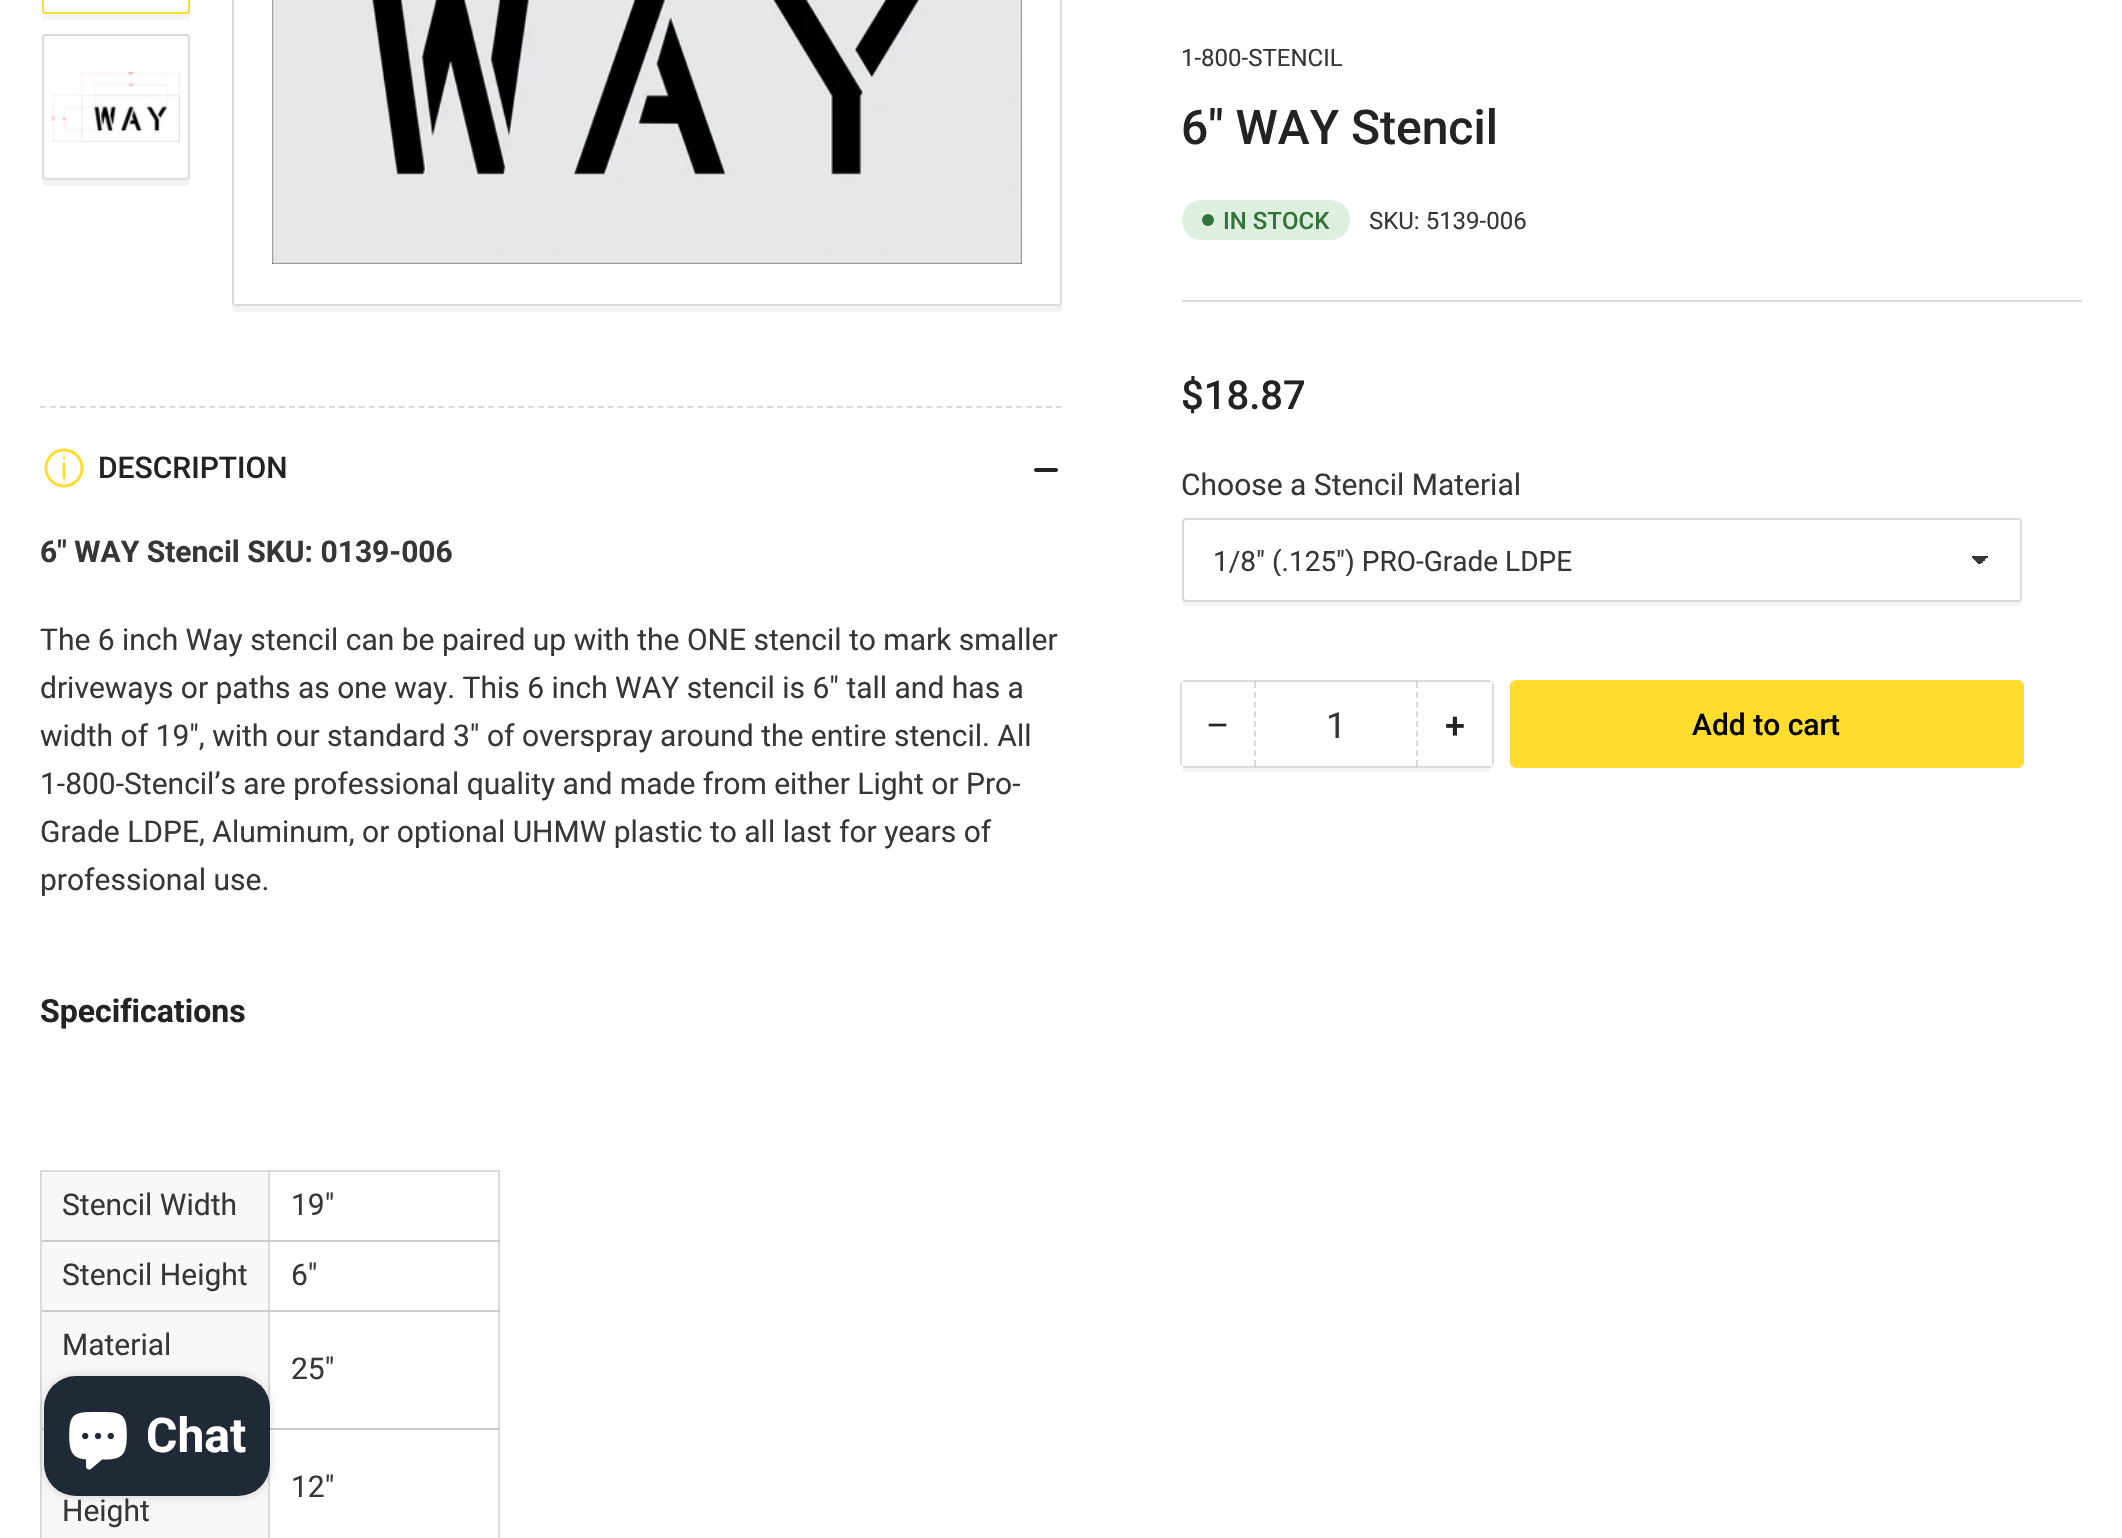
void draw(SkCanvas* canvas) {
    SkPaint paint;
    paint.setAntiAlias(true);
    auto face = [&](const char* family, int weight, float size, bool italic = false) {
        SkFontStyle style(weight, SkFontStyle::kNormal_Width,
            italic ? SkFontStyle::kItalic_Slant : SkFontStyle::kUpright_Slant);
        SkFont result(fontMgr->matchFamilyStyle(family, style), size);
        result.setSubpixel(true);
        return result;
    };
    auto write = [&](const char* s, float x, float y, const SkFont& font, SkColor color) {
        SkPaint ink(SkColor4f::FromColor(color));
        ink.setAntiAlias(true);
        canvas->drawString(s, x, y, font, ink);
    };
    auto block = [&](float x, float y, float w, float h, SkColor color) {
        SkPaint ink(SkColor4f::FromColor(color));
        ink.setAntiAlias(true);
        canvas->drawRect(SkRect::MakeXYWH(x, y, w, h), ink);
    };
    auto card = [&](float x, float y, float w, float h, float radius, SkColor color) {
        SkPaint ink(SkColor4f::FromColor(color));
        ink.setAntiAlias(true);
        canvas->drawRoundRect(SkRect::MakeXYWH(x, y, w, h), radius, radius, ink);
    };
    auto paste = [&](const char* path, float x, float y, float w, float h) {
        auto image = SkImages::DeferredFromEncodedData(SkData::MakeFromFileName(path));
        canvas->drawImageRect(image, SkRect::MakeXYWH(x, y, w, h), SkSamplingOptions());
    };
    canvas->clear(SK_ColorWHITE);
    paint.setColor(SkColorSetRGB(244, 244, 244));
    canvas->drawPath(SkPathBuilder().moveTo(42, 10).lineTo(42, 16).cubicTo(42, 18, 44, 20, 46, 20).lineTo(186, 20).cubicTo(188, 20, 190, 18, 190, 16).lineTo(190, 10).cubicTo(190, 12, 188, 14, 186, 14).lineTo(46, 14).lineTo(43, 13).close().detach(), paint);
    paint.setColor(SK_ColorWHITE);
    canvas->drawRoundRect(SkRect::MakeXYWH(43, -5, 146, 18), 3, 3, paint);
    paint.setStyle(SkPaint::kStroke_Style);
    paint.setStrokeWidth(2);
    paint.setColor(SkColorSetRGB(254, 221, 47));
    canvas->drawRoundRect(SkRect::MakeXYWH(43, -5, 146, 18), 3, 3, paint);
    paint.setStyle(SkPaint::kFill_Style);
    paint.setColor(SkColorSetRGB(244, 244, 244));
    canvas->drawPath(SkPathBuilder().moveTo(42, 176).lineTo(42, 182).cubicTo(42, 184, 44, 186, 46, 186).lineTo(186, 186).cubicTo(188, 186, 190, 184, 190, 182).lineTo(190, 176).cubicTo(190, 178, 188, 180, 186, 180).lineTo(46, 180).lineTo(43, 179).close().detach(), paint);
    paint.setColor(SK_ColorWHITE);
    canvas->drawRoundRect(SkRect::MakeXYWH(43, 35, 146, 144), 3, 3, paint);
    paint.setStyle(SkPaint::kStroke_Style);
    paint.setColor(SkColorSetRGB(218, 218, 218));
    canvas->drawRoundRect(SkRect::MakeXYWH(43, 35, 146, 144), 3, 3, paint);
    paste("pic1.png", 52, 72, 128, 70);
    paint.setStyle(SkPaint::kFill_Style);
    {
        const SkColor colors[] = {SK_ColorWHITE, SkColorSetARGB(0, 255, 255, 255)};
        const float stops[] = {0, 1};
        const SkPoint ends[] = {{116, 242}, {116, 172}};
        paint.setShader(SkGradientShader::MakeLinear(ends, colors, stops, 2, SkTileMode::kClamp));
        paint.setAlpha(255);
    }
    canvas->drawRect(SkRect::MakeXYWH(43, 177, 146, 3), paint);
    paint.setShader(nullptr);
    paint.setColor(SkColorSetRGB(244, 244, 244));
    canvas->drawPath(SkPathBuilder().moveTo(232, 302).lineTo(232, 308).cubicTo(232, 310, 234, 312, 236, 312).lineTo(1058, 312).cubicTo(1060, 312, 1062, 310, 1062, 308).lineTo(1062, 302).cubicTo(1062, 304, 1060, 306, 1058, 306).lineTo(236, 306).cubicTo(234, 306, 232, 304, 232, 302).close().detach(), paint);
    paint.setColor(SK_ColorWHITE);
    canvas->drawRoundRect(SkRect::MakeXYWH(233, -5, 828, 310), 3, 3, paint);
    paint.setStyle(SkPaint::kStroke_Style);
    paint.setColor(SkColorSetRGB(218, 218, 218));
    canvas->drawRoundRect(SkRect::MakeXYWH(233, -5, 828, 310), 3, 3, paint);
    paste("pic2.png", 272, 0, 750, 264);
    block(1182, 300, 900, 2, SkColorSetRGB(218, 218, 218));
    auto kFont1 = face("Roboto", 400, 24);
    write("1-800-STENCIL", 1181, 66, kFont1, SkColorSetRGB(54, 54, 54));
    auto kFont2 = face("Roboto", 500, 48);
    write("6\" WAY Stencil", 1181, 144, kFont2, SkColorSetRGB(35, 35, 35));
    card(1182, 200, 168, 40, 20, SkColorSetRGB(221, 240, 223));
    paint.setStyle(SkPaint::kFill_Style);
    paint.setColor(SkColorSetRGB(51, 114, 57));
    canvas->drawCircle(1208, 220, 6, paint);
    auto kFont3 = face("Roboto", 500, 24);
    write("IN STOCK", 1223, 229, kFont3, SkColorSetRGB(51, 114, 57));
    write("SKU: 5139-006", 1369, 229, kFont1, SkColorSetRGB(54, 54, 54));
    auto kFont4 = face("Roboto", 500, 40);
    write("$18.87", 1181, 409, kFont4, SkColorSetRGB(35, 35, 35));
    auto kFont5 = face("Roboto", 400, 30);
    write("Choose a Stencil Material", 1181, 495, kFont5, SkColorSetRGB(54, 54, 54));
    paint.setColor(SkColorSetRGB(244, 244, 244));
    canvas->drawPath(SkPathBuilder().moveTo(1182, 598).lineTo(1182, 602).cubicTo(1182, 604, 1184, 606, 1186, 606).lineTo(2018, 606).cubicTo(2020, 606, 2022, 604, 2022, 602).lineTo(2022, 598).cubicTo(2022, 600, 2020, 602, 2018, 602).lineTo(1186, 602).cubicTo(1184, 602, 1182, 600, 1182, 598).close().detach(), paint);
    {
        const SkColor colors[] = {SkColorSetRGB(54, 54, 54), SK_ColorWHITE};
        const float stops[] = {0.5f, 0.5f};
        const SkPoint ends[] = {{1980, 555}, {1990, 565}};
        paint.setShader(SkGradientShader::MakeLinear(ends, colors, stops, 2, SkTileMode::kClamp));
        paint.setAlpha(255);
    }
    canvas->drawRect(SkRect::MakeXYWH(1980, 556, 9, 8), paint);
    {
        const SkColor colors[] = {SK_ColorWHITE, SkColorSetRGB(54, 54, 54)};
        const float stops[] = {0.5f, 0.5f};
        const SkPoint ends[] = {{1970, 565}, {1980, 555}};
        paint.setShader(SkGradientShader::MakeLinear(ends, colors, stops, 2, SkTileMode::kClamp));
        paint.setAlpha(255);
    }
    canvas->drawRect(SkRect::MakeXYWH(1972, 556, 8, 8), paint);
    paint.setStyle(SkPaint::kStroke_Style);
    paint.setShader(nullptr);
    paint.setColor(SkColorSetRGB(218, 218, 218));
    canvas->drawRoundRect(SkRect::MakeXYWH(1183, 519, 838, 82), 3, 3, paint);
    canvas->save();
    canvas->clipRect(SkRect::MakeXYWH(1214, 544, 742, 32));
    auto kFont6 = face("Roboto", 400, 28);
    write("1/8\" (.125\") PRO-Grade LDPE", 1213, 571, kFont6, SkColorSetRGB(54, 54, 54));
    canvas->restore();
    paint.setStyle(SkPaint::kFill_Style);
    paint.setColor(SkColorSetRGB(244, 244, 244));
    canvas->drawPath(SkPathBuilder().moveTo(1182, 762).lineTo(1182, 768).cubicTo(1182, 770, 1184, 772, 1186, 772).lineTo(1488, 772).cubicTo(1490, 772, 1492, 770, 1492, 768).lineTo(1492, 762).cubicTo(1492, 764, 1490, 766, 1488, 766).lineTo(1186, 766).cubicTo(1184, 766, 1182, 764, 1182, 762).close().detach(), paint);
    paint.setStyle(SkPaint::kStroke_Style);
    paint.setColor(SkColorSetRGB(218, 218, 218));
    canvas->drawRoundRect(SkRect::MakeXYWH(1181, 681, 312, 86), 5, 5, paint);
    block(1182, 682, 4, 84, SK_ColorWHITE);
    auto kFont7 = face("Liberation Sans", 400, 36);
    write("−", 1207, 737, kFont7, SkColorSetRGB(35, 35, 35));
    paint.setPathEffect(SkDashPathEffect::Make({{6, 3.76f}}, 0));
    canvas->drawPath(SkPathBuilder().moveTo(1417, 682).lineTo(1417, 766).detach(), paint);
    paint.setPathEffect(nullptr);
    paint.setPathEffect(SkDashPathEffect::Make({{6, 3.76f}}, 0));
    canvas->drawPath(SkPathBuilder().moveTo(1255, 682).lineTo(1255, 766).detach(), paint);
    paint.setPathEffect(nullptr);
    auto kFont8 = face("Roboto", 400, 36);
    write("1", 1326, 738, kFont8, SkColorSetRGB(54, 54, 54));
    block(1488, 682, 4, 84, SK_ColorWHITE);
    auto kFont9 = face("Roboto", 500, 36);
    write("+", 1445, 738, kFont9, SkColorSetRGB(35, 35, 35));
    paint.setColor(SkColorSetRGB(254, 221, 47));
    canvas->drawRoundRect(SkRect::MakeXYWH(1511, 681, 512, 86), 5, 5, paint);
    card(1512, 682, 510, 84, 4, SkColorSetRGB(254, 221, 47));
    auto kFont10 = face("Roboto", 500, 30);
    write("Add to cart", 1692, 735, kFont10, SK_ColorBLACK);
    paint.setColor(SkColorSetRGB(218, 218, 218));
    paint.setPathEffect(SkDashPathEffect::Make({{6, 3.96f}}, 0));
    canvas->drawPath(SkPathBuilder().moveTo(40, 407).lineTo(1062, 407).detach(), paint);
    paint.setPathEffect(nullptr);
    paste("pic3.png", 44, 448, 40, 40);
    write("DESCRIPTION", 98, 478, kFont10, SkColorSetRGB(35, 35, 35));
    card(1034, 468, 16, 4, 2, SkColorSetRGB(35, 35, 35));
    card(1044, 468, 14, 4, 2, SkColorSetRGB(35, 35, 35));
    auto kFont11 = face("Roboto", 700, 30);
    write("6\" WAY Stencil SKU: 0139-006", 40, 562, kFont11, SkColorSetRGB(54, 54, 54));
    write("The 6 inch Way stencil can be paired up with the ONE stencil to mark smaller", 40, 650, kFont5, SkColorSetRGB(54, 54, 54));
    write("driveways or paths as one way. This 6 inch WAY stencil is 6\" tall and has a", 40, 698, kFont5, SkColorSetRGB(54, 54, 54));
    write("width of 19\", with our standard 3\" of overspray around the entire stencil. All", 40, 746, kFont5, SkColorSetRGB(54, 54, 54));
    write("1-800-Stencil’s are professional quality and made from either Light or Pro-", 40, 794, kFont5, SkColorSetRGB(54, 54, 54));
    write("Grade LDPE, Aluminum, or optional UHMW plastic to all last for years of", 40, 842, kFont5, SkColorSetRGB(54, 54, 54));
    write("professional use.", 40, 890, kFont5, SkColorSetRGB(54, 54, 54));
    auto kFont12 = face("Roboto", 700, 32);
    write("Specifications", 40, 1022, kFont12, SkColorSetRGB(35, 35, 35));
    block(42, 1172, 226, 68, SkColorSetRGB(248, 248, 248));
    block(268, 1170, 232, 2, SkColorSetRGB(218, 218, 218));
    block(498, 1240, 2, 298, SkColorSetRGB(218, 218, 218));
    block(498, 1170, 2, 72, SkColorSetRGB(218, 218, 218));
    block(268, 1310, 2, 98, SkColorSetRGB(218, 218, 218));
    block(268, 1310, 232, 2, SkColorSetRGB(204, 204, 204));
    block(268, 1240, 2, 72, SkColorSetRGB(218, 218, 218));
    block(268, 1240, 232, 2, SkColorSetRGB(204, 204, 204));
    block(268, 1170, 2, 72, SkColorSetRGB(218, 218, 218));
    block(40, 1170, 230, 2, SkColorSetRGB(218, 218, 218));
    block(40, 1428, 2, 110, SkColorSetRGB(218, 218, 218));
    block(40, 1428, 4, 2, SkColorSetRGB(204, 204, 204));
    block(40, 1310, 2, 120, SkColorSetRGB(218, 218, 218));
    block(40, 1310, 230, 2, SkColorSetRGB(204, 204, 204));
    block(40, 1240, 2, 72, SkColorSetRGB(218, 218, 218));
    block(40, 1240, 230, 2, SkColorSetRGB(204, 204, 204));
    block(40, 1170, 2, 72, SkColorSetRGB(218, 218, 218));
    write("Stencil Width", 62, 1215, kFont5, SkColorSetRGB(54, 54, 54));
    write("19\"", 291, 1215, kFont5, SkColorSetRGB(54, 54, 54));
    block(42, 1242, 226, 68, SkColorSetRGB(248, 248, 248));
    write("Stencil Height", 62, 1285, kFont5, SkColorSetRGB(54, 54, 54));
    write("6\"", 291, 1285, kFont5, SkColorSetRGB(54, 54, 54));
    block(42, 1312, 226, 116, SkColorSetRGB(248, 248, 248));
    write("Material", 62, 1355, kFont5, SkColorSetRGB(54, 54, 54));
    block(268, 1428, 232, 2, SkColorSetRGB(204, 204, 204));
    write("25\"", 291, 1379, kFont5, SkColorSetRGB(54, 54, 54));
    block(268, 1464, 2, 74, SkColorSetRGB(218, 218, 218));
    write("12\"", 291, 1497, kFont5, SkColorSetRGB(54, 54, 54));
    block(42, 1430, 226, 108, SkColorSetRGB(248, 248, 248));
    write("Height", 62, 1521, kFont5, SkColorSetRGB(54, 54, 54));
    paint.setStyle(SkPaint::kFill_Style);
    paint.setColor(SkColorSetARGB(38, 0, 0, 0));
    paint.setMaskFilter(SkMaskFilter::MakeBlur(kNormal_SkBlurStyle, 5));
    canvas->drawRoundRect(SkRect::MakeXYWH(44, 1376, 226, 120), 32, 32, paint);
    paint.setMaskFilter(nullptr);
    card(44, 1376, 226, 120, 32, SkColorSetRGB(32, 42, 54));
    paste("pic4.png", 69, 1412, 58, 58);
    auto kFont13 = face("Roboto", 700, 48);
    write("Chat", 146, 1452, kFont13, SK_ColorWHITE);
}
